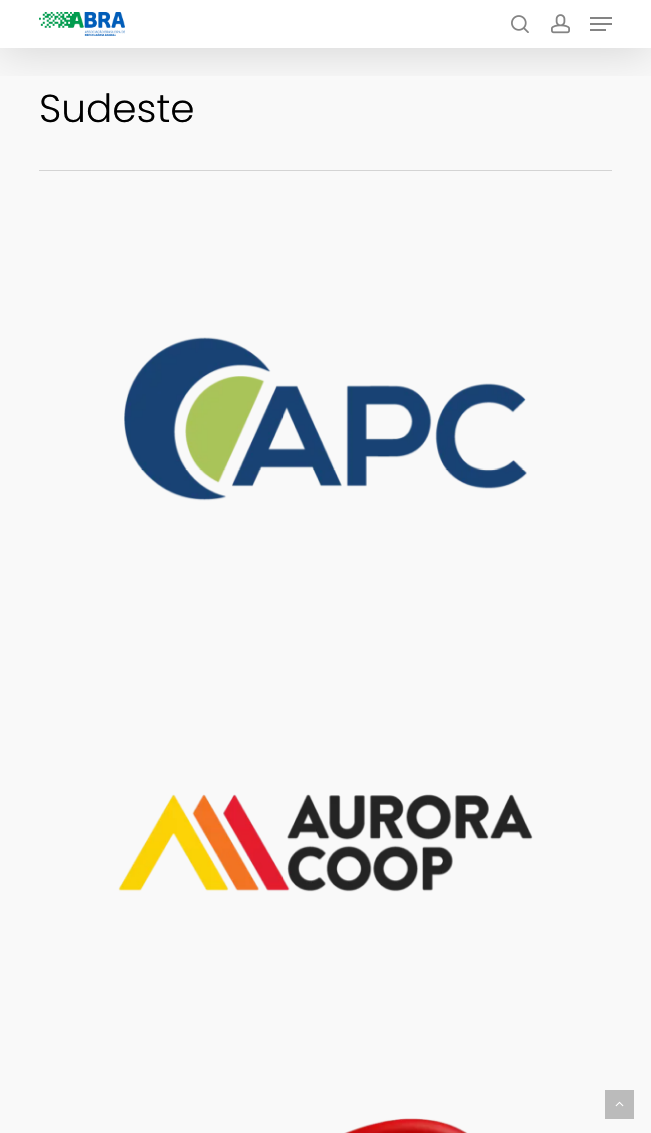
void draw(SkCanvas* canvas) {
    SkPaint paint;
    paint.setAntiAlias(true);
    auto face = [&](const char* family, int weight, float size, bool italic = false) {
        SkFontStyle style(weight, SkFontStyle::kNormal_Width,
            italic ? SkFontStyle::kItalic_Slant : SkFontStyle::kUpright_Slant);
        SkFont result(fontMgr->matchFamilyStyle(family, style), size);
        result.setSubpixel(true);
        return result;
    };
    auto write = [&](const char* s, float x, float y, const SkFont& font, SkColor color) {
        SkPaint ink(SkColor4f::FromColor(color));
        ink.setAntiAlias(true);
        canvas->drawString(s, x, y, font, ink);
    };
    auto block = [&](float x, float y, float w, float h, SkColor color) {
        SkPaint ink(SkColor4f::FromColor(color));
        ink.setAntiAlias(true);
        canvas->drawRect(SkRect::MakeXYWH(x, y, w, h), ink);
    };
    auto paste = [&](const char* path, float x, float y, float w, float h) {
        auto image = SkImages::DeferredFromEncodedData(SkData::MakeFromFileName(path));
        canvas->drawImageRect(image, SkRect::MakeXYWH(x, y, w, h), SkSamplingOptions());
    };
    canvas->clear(SkColorSetRGB(249, 249, 249));
    block(0, 0, 651, 48, SK_ColorWHITE);
    canvas->save();
    canvas->clipRect(SkRect::MakeXYWH(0, 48, 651, 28));
    paint.setColor(SkColorSetARGB(38, 0, 0, 0));
    paint.setMaskFilter(SkMaskFilter::MakeBlur(kNormal_SkBlurStyle, 22.5f));
    canvas->drawRect(SkRect::MakeXYWH(0, 3, 651, 48), paint);
    paint.setMaskFilter(nullptr);
    canvas->restore();
    paste("pic1.png", 39, 12, 86, 24);
    paste("pic2.png", 511, 15, 18, 18);
    paste("pic3.png", 551, 14, 19, 20);
    block(590, 17, 22, 2, SkColorSetRGB(132, 132, 132));
    block(590, 29, 16, 2, SkColorSetRGB(132, 132, 132));
    block(590, 23, 22, 2, SkColorSetRGB(132, 132, 132));
    block(39, 170, 573, 1, SkColorSetRGB(212, 212, 212));
    auto kFont1 = face("Poppins", 300, 39);
    write("Sudeste", 39, 122, kFont1, SK_ColorBLACK);
    paste("pic4.png", 124, 337, 403, 164);
    paste("pic5.png", 118, 794, 415, 98);
    paste("pic6.png", 344, 1118, 124, 15);
    block(605, 1090, 29, 29, SkColorSetRGB(187, 187, 187));
    paste("pic7.png", 615, 1101, 9, 6);
}
